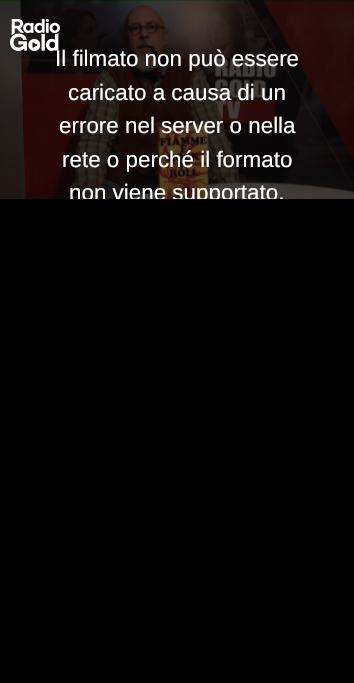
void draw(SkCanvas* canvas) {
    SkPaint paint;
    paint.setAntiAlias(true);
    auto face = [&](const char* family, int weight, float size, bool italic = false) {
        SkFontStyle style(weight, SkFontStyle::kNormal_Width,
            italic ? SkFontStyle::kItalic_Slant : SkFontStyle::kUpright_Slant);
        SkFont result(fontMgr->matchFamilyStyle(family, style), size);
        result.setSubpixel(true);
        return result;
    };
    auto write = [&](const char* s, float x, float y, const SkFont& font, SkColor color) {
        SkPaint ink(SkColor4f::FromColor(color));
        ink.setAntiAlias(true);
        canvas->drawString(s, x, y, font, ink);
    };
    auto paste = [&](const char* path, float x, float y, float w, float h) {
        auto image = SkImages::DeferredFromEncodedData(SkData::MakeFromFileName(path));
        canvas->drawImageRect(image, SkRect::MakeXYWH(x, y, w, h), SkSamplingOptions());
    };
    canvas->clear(SK_ColorBLACK);
    paste("pic1.png", 0, 0, 354, 199);
    auto kFont1 = face("Liberation Sans", 400, 22.4f);
    write("Il filmato non può essere", 55, 66, kFont1, SK_ColorWHITE);
    paste("pic2.png", 10, 19, 50, 32);
    write("caricato a causa di un", 68, 100, kFont1, SK_ColorWHITE);
    write("errore nel server o nella", 59, 133, kFont1, SK_ColorWHITE);
    write("rete o perché il formato", 62, 167, kFont1, SK_ColorWHITE);
    canvas->save();
    canvas->clipRect(SkRect::MakeXYWH(22, 22, 310, 177));
    write("non viene supportato.", 69, 200, kFont1, SK_ColorWHITE);
    canvas->restore();
}
